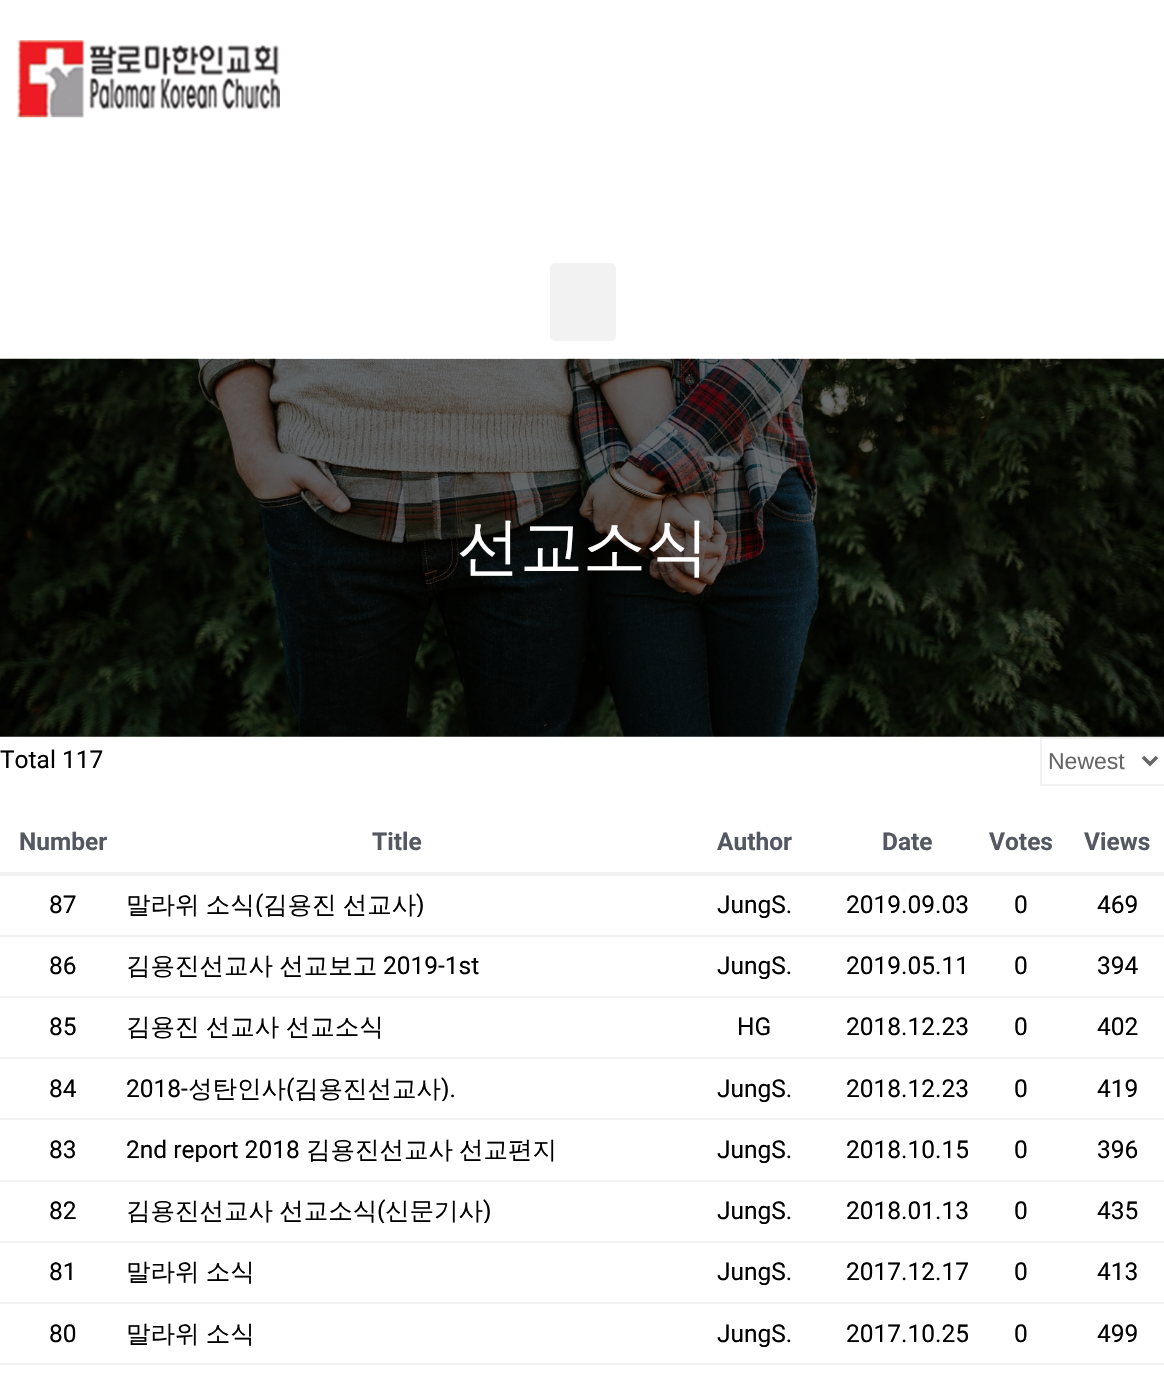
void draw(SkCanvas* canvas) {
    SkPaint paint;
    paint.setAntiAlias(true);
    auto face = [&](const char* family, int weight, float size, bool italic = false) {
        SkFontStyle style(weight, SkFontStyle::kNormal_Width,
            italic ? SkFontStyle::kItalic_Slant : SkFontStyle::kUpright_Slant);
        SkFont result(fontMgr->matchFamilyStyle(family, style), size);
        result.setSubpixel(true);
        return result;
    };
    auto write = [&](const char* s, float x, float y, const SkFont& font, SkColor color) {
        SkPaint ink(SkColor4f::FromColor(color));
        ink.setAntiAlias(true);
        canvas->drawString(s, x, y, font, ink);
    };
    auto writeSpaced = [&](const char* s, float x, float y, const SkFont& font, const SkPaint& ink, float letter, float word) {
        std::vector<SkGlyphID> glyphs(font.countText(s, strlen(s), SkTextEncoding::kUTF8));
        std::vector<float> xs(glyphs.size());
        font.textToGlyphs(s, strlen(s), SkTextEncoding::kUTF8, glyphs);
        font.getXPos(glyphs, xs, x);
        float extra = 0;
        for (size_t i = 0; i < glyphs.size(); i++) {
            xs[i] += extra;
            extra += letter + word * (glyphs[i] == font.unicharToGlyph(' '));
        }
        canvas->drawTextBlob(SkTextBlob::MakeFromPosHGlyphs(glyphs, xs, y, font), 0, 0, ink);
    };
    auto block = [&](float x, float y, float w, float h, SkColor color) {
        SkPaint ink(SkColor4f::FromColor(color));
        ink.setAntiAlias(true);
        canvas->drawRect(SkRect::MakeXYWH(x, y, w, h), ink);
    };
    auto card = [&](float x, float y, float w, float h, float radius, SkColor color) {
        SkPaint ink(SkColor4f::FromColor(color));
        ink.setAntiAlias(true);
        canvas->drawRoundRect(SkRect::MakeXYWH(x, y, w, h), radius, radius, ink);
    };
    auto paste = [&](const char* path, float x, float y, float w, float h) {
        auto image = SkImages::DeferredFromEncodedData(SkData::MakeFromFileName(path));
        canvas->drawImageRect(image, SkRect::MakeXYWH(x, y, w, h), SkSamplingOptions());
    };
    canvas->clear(SK_ColorWHITE);
    paste("pic1.png", 17, 40, 263, 78);
    card(550, 263, 66, 78, 5, SkColorSetRGB(242, 242, 242));
    paste("pic2.png", 0, 358, 1164, 379);
    auto kFont1 = face("WenQuanYi Zen Hei", 500, 63);
    write("선교소식", 457, 568, kFont1, SK_ColorWHITE);
    auto kFont2 = face("Roboto", 400, 24.5f);
    write("Total 117", 0, 768, kFont2, SK_ColorBLACK);
    paint.setStyle(SkPaint::kStroke_Style);
    paint.setStrokeWidth(2);
    paint.setColor(SkColorSetRGB(241, 241, 241));
    canvas->drawRect(SkRect::MakeXYWH(1041, 738, 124, 47), paint);
    paint.setStrokeWidth(3.5f);
    paint.setColor(SkColorSetRGB(102, 102, 102));
    canvas->drawPath(SkPathBuilder().moveTo(1143, 757).lineTo(1150, 764).lineTo(1157, 757).detach(), paint);
    auto kFont3 = face("Liberation Sans", 400, 23);
    write("Newest", 1048, 769, kFont3, SkColorSetRGB(102, 102, 102));
    auto kFont4 = face("Roboto", 700, 24.5f);
    write("Number", 19, 850, kFont4, SkColorSetRGB(84, 88, 97));
    write("Title", 372, 850, kFont4, SkColorSetRGB(84, 88, 97));
    write("Author", 717, 850, kFont4, SkColorSetRGB(84, 88, 97));
    write("Date", 882, 850, kFont4, SkColorSetRGB(84, 88, 97));
    write("Votes", 989, 850, kFont4, SkColorSetRGB(84, 88, 97));
    block(0, 872, 1164, 4, SkColorSetRGB(241, 241, 241));
    write("Views", 1084, 850, kFont4, SkColorSetRGB(84, 88, 97));
    write("87", 49, 913, kFont2, SK_ColorBLACK);
    auto kFont5 = face("WenQuanYi Zen Hei", 500, 24.5f);
    paint.setStyle(SkPaint::kFill_Style);
    paint.setColor(SK_ColorBLACK);
    writeSpaced("말라위 소식", 126, 913, kFont5, paint, 0, -1);
    canvas->save();
    canvas->clipRect(SkRect::MakeXYWH(126, 893, 541, 24));
    write("(", 255, 913, kFont2, SK_ColorBLACK);
    canvas->restore();
    writeSpaced("김용진 선교사", 263, 913, kFont5, paint, 0, -1);
    canvas->save();
    canvas->clipRect(SkRect::MakeXYWH(126, 893, 541, 24));
    write(")", 416, 913, kFont2, SK_ColorBLACK);
    canvas->restore();
    write("JungS.", 717, 913, kFont2, SK_ColorBLACK);
    write("2019.09.03", 846, 913, kFont2, SK_ColorBLACK);
    write("0", 1014, 913, kFont2, SK_ColorBLACK);
    block(0, 935, 1164, 2, SkColorSetRGB(241, 241, 241));
    write("469", 1097, 913, kFont2, SK_ColorBLACK);
    write("86", 49, 974, kFont2, SK_ColorBLACK);
    writeSpaced("김용진선교사 선교보고", 126, 974, kFont5, paint, 0, -1);
    write("2019-1st", 383, 974, kFont2, SK_ColorBLACK);
    write("JungS.", 717, 974, kFont2, SK_ColorBLACK);
    write("2019.05.11", 846, 974, kFont2, SK_ColorBLACK);
    write("0", 1014, 974, kFont2, SK_ColorBLACK);
    block(0, 996, 1164, 2, SkColorSetRGB(241, 241, 241));
    write("394", 1097, 974, kFont2, SK_ColorBLACK);
    write("85", 49, 1035, kFont2, SK_ColorBLACK);
    writeSpaced("김용진 선교사 선교소식", 126, 1035, kFont5, paint, 0, -1);
    write("HG", 737, 1035, kFont2, SK_ColorBLACK);
    write("2018.12.23", 846, 1035, kFont2, SK_ColorBLACK);
    write("0", 1014, 1035, kFont2, SK_ColorBLACK);
    block(0, 1057, 1164, 2, SkColorSetRGB(241, 241, 241));
    write("402", 1097, 1035, kFont2, SK_ColorBLACK);
    write("84", 49, 1097, kFont2, SK_ColorBLACK);
    write("2018-", 126, 1097, kFont2, SK_ColorBLACK);
    write("성탄인사", 188, 1097, kFont5, SK_ColorBLACK);
    canvas->save();
    canvas->clipRect(SkRect::MakeXYWH(126, 1076, 541, 25));
    write("(", 286, 1097, kFont2, SK_ColorBLACK);
    canvas->restore();
    write("김용진선교사", 294, 1097, kFont5, SK_ColorBLACK);
    canvas->save();
    canvas->clipRect(SkRect::MakeXYWH(126, 1076, 541, 25));
    write(").", 441, 1097, kFont2, SK_ColorBLACK);
    canvas->restore();
    write("JungS.", 717, 1097, kFont2, SK_ColorBLACK);
    write("2018.12.23", 846, 1097, kFont2, SK_ColorBLACK);
    write("0", 1014, 1097, kFont2, SK_ColorBLACK);
    block(0, 1118, 1164, 2, SkColorSetRGB(241, 241, 241));
    write("419", 1097, 1097, kFont2, SK_ColorBLACK);
    write("83", 49, 1158, kFont2, SK_ColorBLACK);
    canvas->save();
    canvas->clipRect(SkRect::MakeXYWH(126, 1138, 541, 24));
    write("2nd report 2018", 126, 1158, kFont2, SK_ColorBLACK);
    canvas->restore();
    write("김용진선교사", 306, 1158, kFont5, SK_ColorBLACK);
    write("선교편지", 459, 1158, kFont5, SK_ColorBLACK);
    write("JungS.", 717, 1158, kFont2, SK_ColorBLACK);
    write("2018.10.15", 846, 1158, kFont2, SK_ColorBLACK);
    write("0", 1014, 1158, kFont2, SK_ColorBLACK);
    block(0, 1180, 1164, 2, SkColorSetRGB(241, 241, 241));
    write("396", 1097, 1158, kFont2, SK_ColorBLACK);
    write("82", 49, 1219, kFont2, SK_ColorBLACK);
    writeSpaced("김용진선교사 선교소식", 126, 1219, kFont5, paint, 0, -1);
    canvas->save();
    canvas->clipRect(SkRect::MakeXYWH(126, 1199, 541, 24));
    write("(", 377, 1219, kFont2, SK_ColorBLACK);
    canvas->restore();
    write("신문기사", 385, 1219, kFont5, SK_ColorBLACK);
    canvas->save();
    canvas->clipRect(SkRect::MakeXYWH(126, 1199, 541, 24));
    write(")", 483, 1219, kFont2, SK_ColorBLACK);
    canvas->restore();
    write("JungS.", 717, 1219, kFont2, SK_ColorBLACK);
    write("2018.01.13", 846, 1219, kFont2, SK_ColorBLACK);
    write("0", 1014, 1219, kFont2, SK_ColorBLACK);
    block(0, 1241, 1164, 2, SkColorSetRGB(241, 241, 241));
    write("435", 1097, 1219, kFont2, SK_ColorBLACK);
    write("81", 49, 1280, kFont2, SK_ColorBLACK);
    writeSpaced("말라위 소식", 126, 1280, kFont5, paint, 0, -1);
    write("JungS.", 717, 1280, kFont2, SK_ColorBLACK);
    write("2017.12.17", 846, 1280, kFont2, SK_ColorBLACK);
    write("0", 1014, 1280, kFont2, SK_ColorBLACK);
    block(0, 1302, 1164, 2, SkColorSetRGB(241, 241, 241));
    write("413", 1097, 1280, kFont2, SK_ColorBLACK);
    write("80", 49, 1342, kFont2, SK_ColorBLACK);
    writeSpaced("말라위 소식", 126, 1342, kFont5, paint, 0, -1);
    write("JungS.", 717, 1342, kFont2, SK_ColorBLACK);
    write("2017.10.25", 846, 1342, kFont2, SK_ColorBLACK);
    write("0", 1014, 1342, kFont2, SK_ColorBLACK);
    block(0, 1363, 1164, 2, SkColorSetRGB(241, 241, 241));
    write("499", 1097, 1342, kFont2, SK_ColorBLACK);
}
